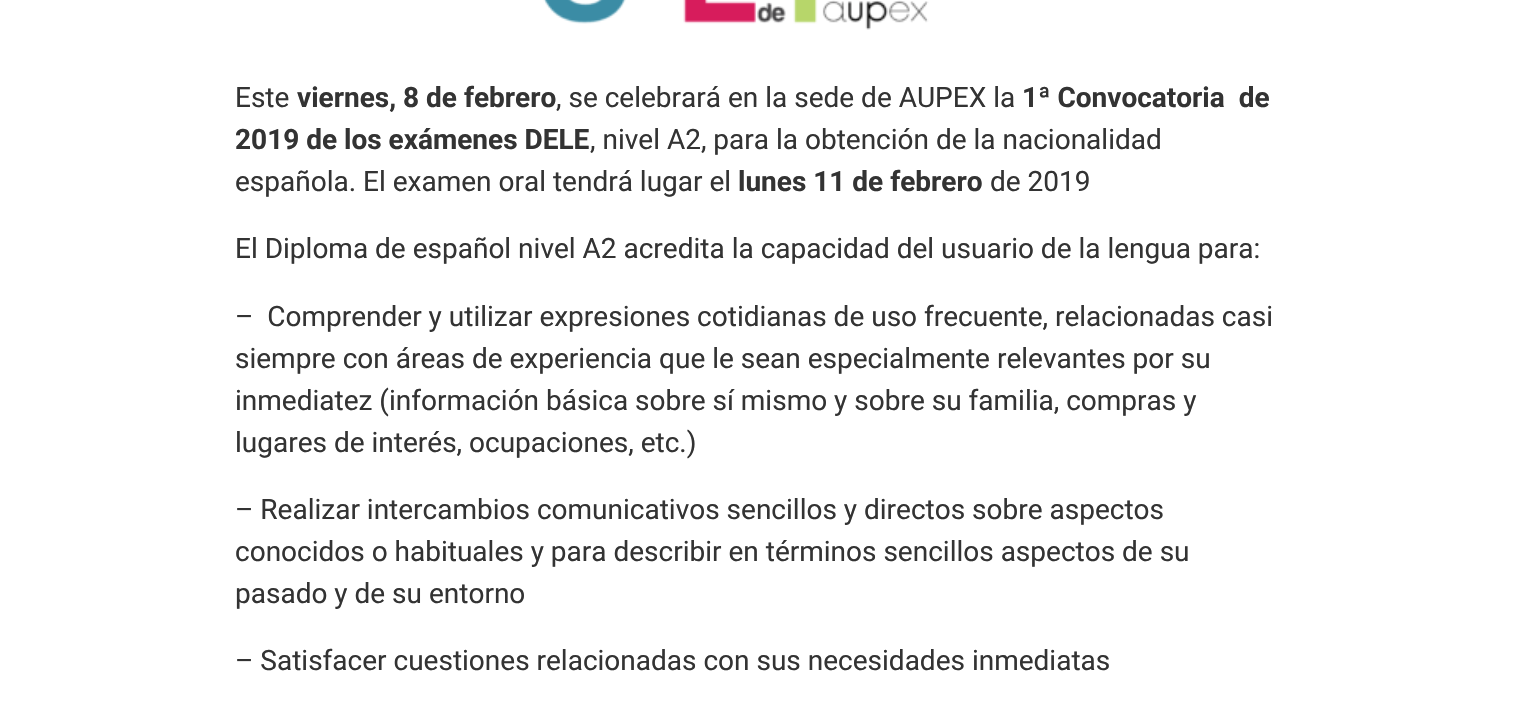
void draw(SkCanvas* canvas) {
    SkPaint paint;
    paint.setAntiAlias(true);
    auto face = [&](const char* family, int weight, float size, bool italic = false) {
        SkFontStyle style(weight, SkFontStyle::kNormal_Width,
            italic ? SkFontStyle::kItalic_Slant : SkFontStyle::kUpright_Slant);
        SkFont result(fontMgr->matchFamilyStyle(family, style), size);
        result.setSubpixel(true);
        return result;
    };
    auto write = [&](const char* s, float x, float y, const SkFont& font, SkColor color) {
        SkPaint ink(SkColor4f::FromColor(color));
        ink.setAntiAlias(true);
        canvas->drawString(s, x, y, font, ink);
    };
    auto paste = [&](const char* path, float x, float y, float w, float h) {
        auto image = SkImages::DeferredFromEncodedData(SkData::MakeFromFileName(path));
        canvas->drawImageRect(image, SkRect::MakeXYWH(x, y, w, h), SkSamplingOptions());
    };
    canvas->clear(SK_ColorWHITE);
    paste("pic1.png", 543, 0, 386, 30);
    auto kFont1 = face("Roboto", 400, 28);
    write("Este", 235, 107, kFont1, SkColorSetRGB(51, 51, 51));
    auto kFont2 = face("Roboto", 700, 28);
    write("viernes, 8 de febrero", 297, 107, kFont2, SkColorSetRGB(51, 51, 51));
    write(", se celebrará en la sede de AUPEX la", 556, 107, kFont1, SkColorSetRGB(51, 51, 51));
    write("1ª Convocatoria  de", 1022, 107, kFont2, SkColorSetRGB(51, 51, 51));
    write("2019 de los exámenes DELE", 235, 149, kFont2, SkColorSetRGB(51, 51, 51));
    write(", nivel A2, para la obtención de la nacionalidad", 590, 149, kFont1, SkColorSetRGB(51, 51, 51));
    write("española. El examen oral tendrá lugar el", 235, 191, kFont1, SkColorSetRGB(51, 51, 51));
    write("lunes 11 de febrero", 738, 191, kFont2, SkColorSetRGB(51, 51, 51));
    write("de 2019", 990, 191, kFont1, SkColorSetRGB(51, 51, 51));
    write("El Diploma de español nivel A2 acredita la capacidad del usuario de la lengua para:", 235, 258, kFont1, SkColorSetRGB(51, 51, 51));
    write("–  Comprender y utilizar expresiones cotidianas de uso frecuente, relacionadas casi", 235, 326, kFont1, SkColorSetRGB(51, 51, 51));
    write("siempre con áreas de experiencia que le sean especialmente relevantes por su", 235, 368, kFont1, SkColorSetRGB(51, 51, 51));
    write("inmediatez (información básica sobre sí mismo y sobre su familia, compras y", 235, 410, kFont1, SkColorSetRGB(51, 51, 51));
    write("lugares de interés, ocupaciones, etc.)", 235, 452, kFont1, SkColorSetRGB(51, 51, 51));
    write("– Realizar intercambios comunicativos sencillos y directos sobre aspectos", 235, 519, kFont1, SkColorSetRGB(51, 51, 51));
    write("conocidos o habituales y para describir en términos sencillos aspectos de su", 235, 561, kFont1, SkColorSetRGB(51, 51, 51));
    write("pasado y de su entorno", 235, 603, kFont1, SkColorSetRGB(51, 51, 51));
    write("– Satisfacer cuestiones relacionadas con sus necesidades inmediatas", 235, 670, kFont1, SkColorSetRGB(51, 51, 51));
}
